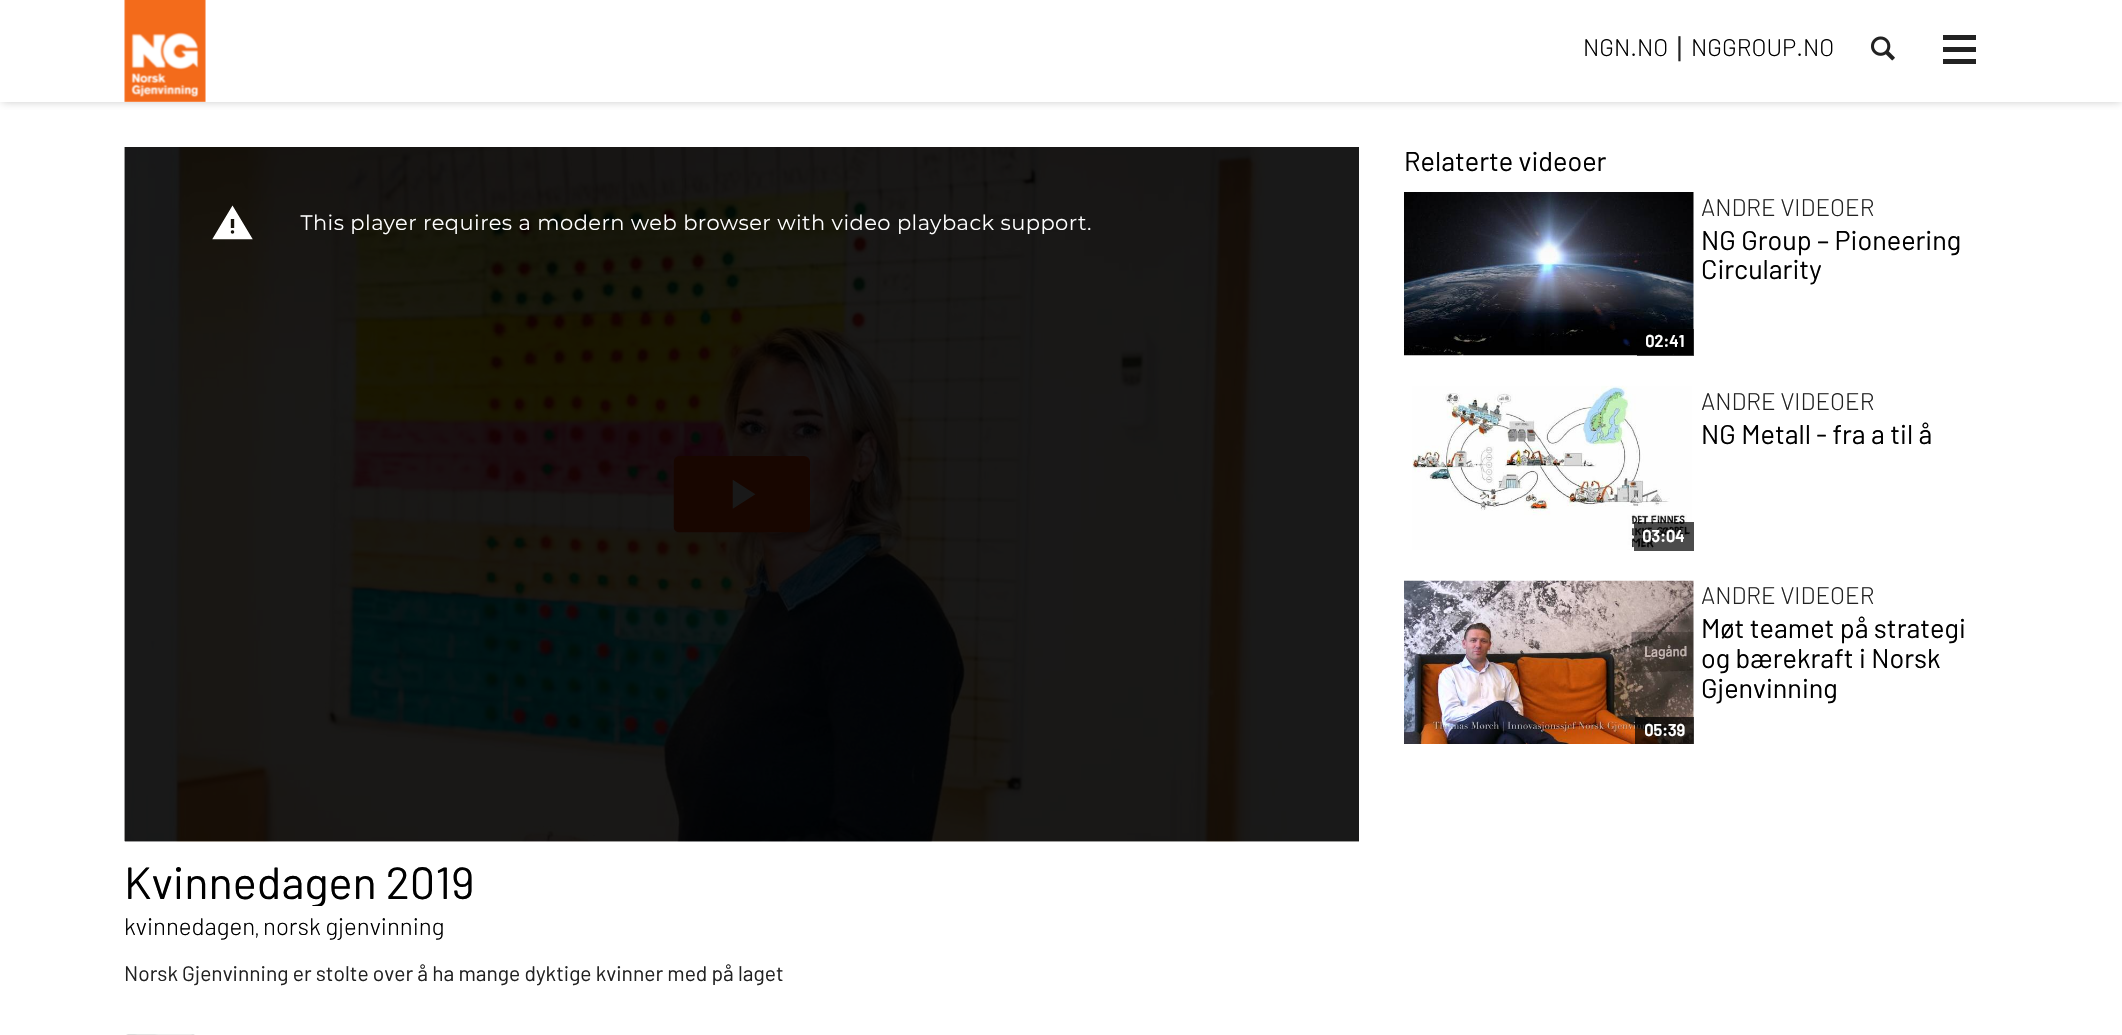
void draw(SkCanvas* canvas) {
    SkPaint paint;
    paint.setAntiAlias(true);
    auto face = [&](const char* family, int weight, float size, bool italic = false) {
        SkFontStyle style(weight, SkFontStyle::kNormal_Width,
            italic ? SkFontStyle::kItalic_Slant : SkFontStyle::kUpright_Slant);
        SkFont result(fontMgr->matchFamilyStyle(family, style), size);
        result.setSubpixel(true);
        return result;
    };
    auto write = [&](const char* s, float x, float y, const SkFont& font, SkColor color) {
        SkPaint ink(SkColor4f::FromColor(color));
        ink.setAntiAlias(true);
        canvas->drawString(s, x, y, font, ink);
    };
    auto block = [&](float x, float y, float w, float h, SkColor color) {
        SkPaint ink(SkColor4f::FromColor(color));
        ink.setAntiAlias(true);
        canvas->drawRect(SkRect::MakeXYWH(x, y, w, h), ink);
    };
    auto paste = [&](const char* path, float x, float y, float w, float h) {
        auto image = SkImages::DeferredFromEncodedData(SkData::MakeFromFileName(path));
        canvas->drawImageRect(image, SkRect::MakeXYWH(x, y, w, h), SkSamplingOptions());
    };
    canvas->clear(SK_ColorWHITE);
    canvas->save();
    canvas->clipRect(SkRect::MakeXYWH(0, 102, 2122, 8));
    paint.setColor(SkColorSetRGB(204, 204, 204));
    paint.setMaskFilter(SkMaskFilter::MakeBlur(kNormal_SkBlurStyle, 4));
    canvas->drawRect(SkRect::MakeXYWH(2, -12, 2119, 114), paint);
    paint.setMaskFilter(nullptr);
    canvas->restore();
    paste("pic1.png", 124, 0, 82, 102);
    auto kFont1 = face("Barlow", 300, 24);
    write("NGN.NO", 1583, 56, kFont1, SK_ColorBLACK);
    auto kFont2 = face("DejaVu Sans", 400, 21);
    write("⎮", 1674, 56, kFont2, SkColorSetRGB(34, 34, 34));
    write("NGGROUP.NO", 1691, 56, kFont1, SK_ColorBLACK);
    paste("pic2.png", 1871, 36, 24, 25);
    block(1943, 35, 33, 5, SkColorSetRGB(34, 34, 34));
    block(1943, 47, 33, 5, SkColorSetRGB(34, 34, 34));
    block(1943, 59, 33, 5, SkColorSetRGB(34, 34, 34));
    auto kFont3 = face("Barlow", 400, 27);
    write("Relaterte videoer", 1404, 171, kFont3, SK_ColorBLACK);
    write("ANDRE VIDEOER", 1701, 216, kFont1, SkColorSetRGB(34, 34, 34));
    write("NG Group – Pioneering", 1701, 250, kFont3, SK_ColorBLACK);
    write("Circularity", 1701, 279, kFont3, SK_ColorBLACK);
    paste("pic3.png", 1404, 192, 290, 164);
    block(1637, 329, 57, 27, SkColorSetARGB(179, 0, 0, 0));
    auto kFont4 = face("Barlow", 700, 16.5f);
    write("02:41", 1645, 347, kFont4, SK_ColorWHITE);
    write("ANDRE VIDEOER", 1701, 410, kFont1, SkColorSetRGB(34, 34, 34));
    write("NG Metall - fra a til å", 1701, 444, kFont3, SK_ColorBLACK);
    paste("pic4.png", 1412, 385, 280, 165);
    block(1634, 522, 60, 29, SkColorSetARGB(179, 0, 0, 0));
    write("03:04", 1642, 542, kFont4, SK_ColorWHITE);
    write("ANDRE VIDEOER", 1701, 604, kFont1, SkColorSetRGB(34, 34, 34));
    write("Møt teamet på strategi", 1701, 638, kFont3, SK_ColorBLACK);
    write("og bærekraft i Norsk", 1701, 668, kFont3, SK_ColorBLACK);
    write("Gjenvinning", 1701, 698, kFont3, SK_ColorBLACK);
    paste("pic5.png", 1404, 580, 290, 164);
    block(1635, 717, 59, 27, SkColorSetARGB(179, 0, 0, 0));
    write("05:39", 1644, 736, kFont4, SK_ColorWHITE);
    paste("pic6.png", 124, 147, 1235, 695);
    canvas->save();
    canvas->clipRect(SkRect::MakeXYWH(125, 857, 1021, 49));
    auto kFont5 = face("Barlow", 400, 45);
    write("Kvinnedagen 2019", 124, 899, kFont5, SK_ColorBLACK);
    canvas->restore();
    write("kvinnedagen", 124, 935, kFont1, SK_ColorBLACK);
    auto kFont6 = face("Montserrat", 400, 18);
    write(",", 255, 935, kFont6, SkColorSetRGB(34, 34, 34));
    write("norsk gjenvinning", 263, 935, kFont1, SK_ColorBLACK);
    auto kFont7 = face("Barlow", 400, 21);
    write("Norsk Gjenvinning er stolte over å ha mange dyktige kvinner med på laget", 124, 981, kFont7, SkColorSetRGB(34, 34, 34));
    paint.setColor(SkColorSetRGB(221, 221, 221));
    canvas->drawPath(SkPathBuilder().moveTo(128, 1034).lineTo(126, 1035).lineTo(127, 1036).lineTo(128, 1035).cubicTo(134, 1035, 191, 1034, 193, 1035).lineTo(194, 1034).lineTo(192, 1034).close().detach(), paint);
    canvas->drawPath(SkPathBuilder().moveTo(194, 1034).lineTo(195, 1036).lineTo(195, 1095).lineTo(194, 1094).lineTo(194, 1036).lineTo(193, 1035).close().detach(), paint);
}
